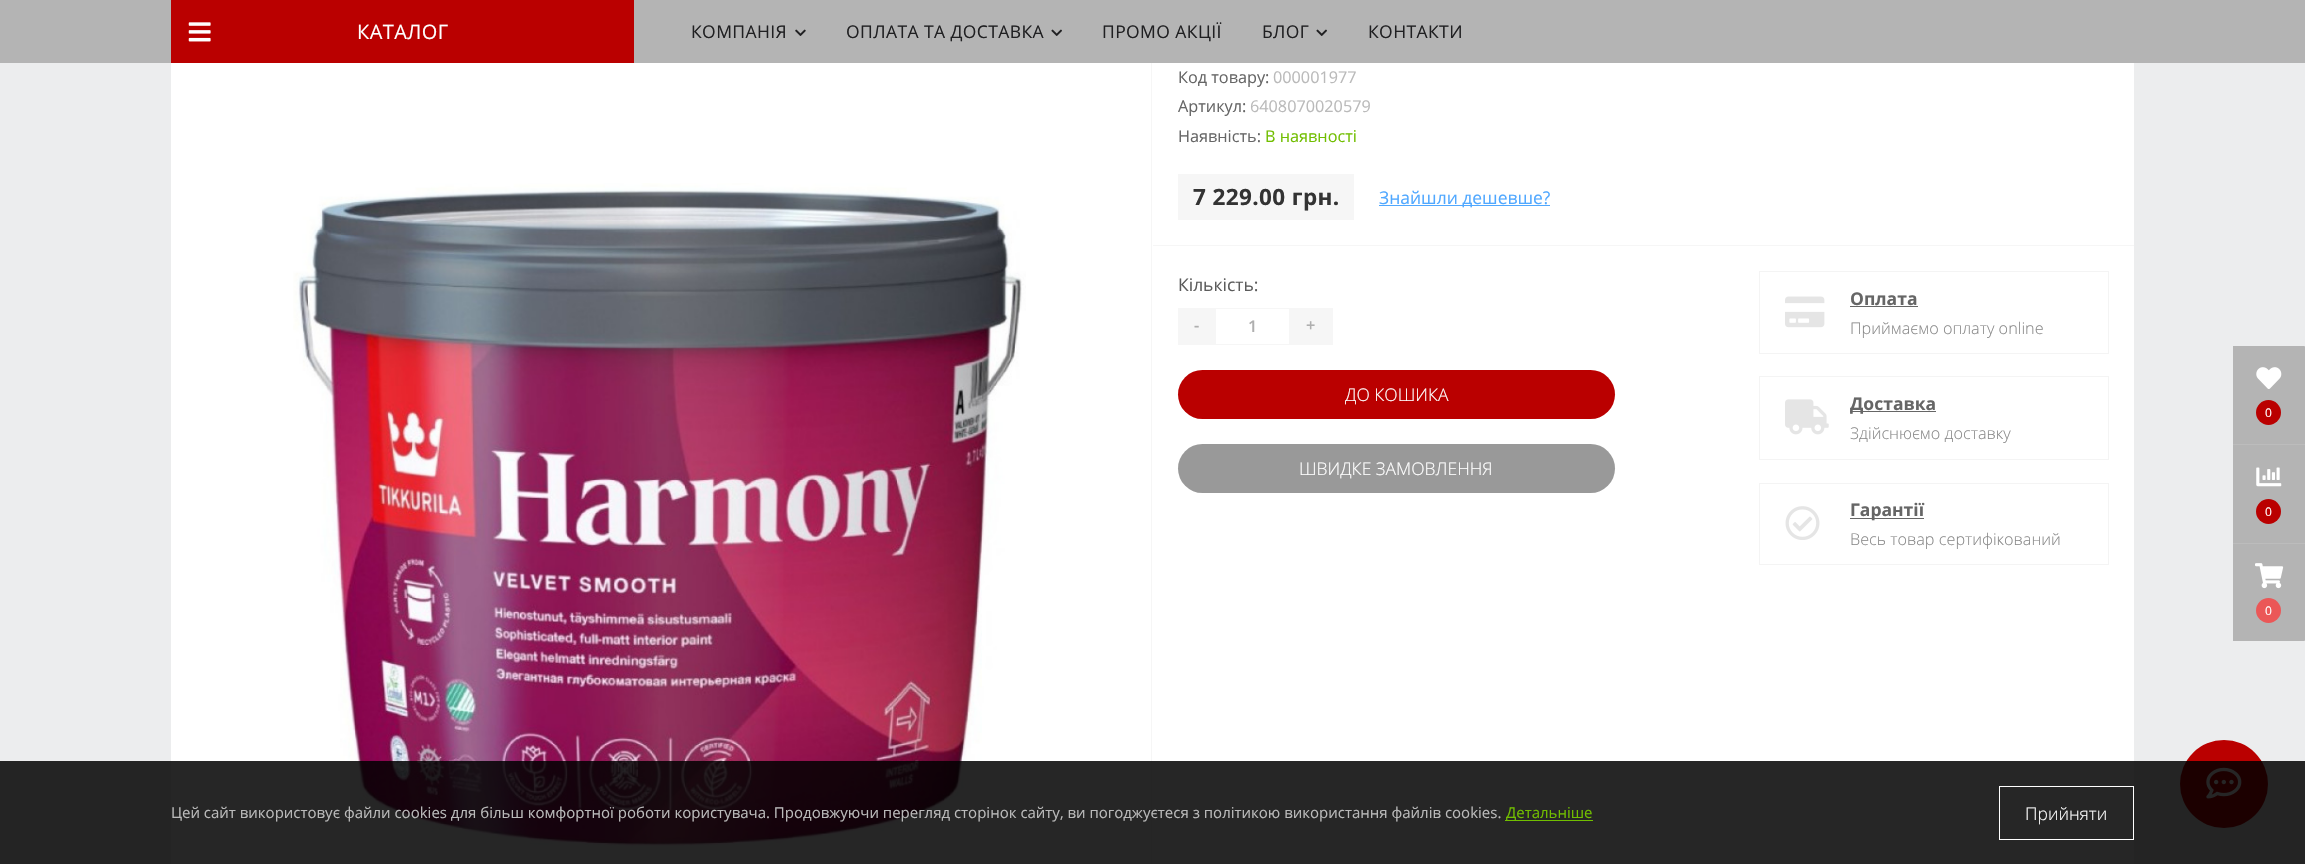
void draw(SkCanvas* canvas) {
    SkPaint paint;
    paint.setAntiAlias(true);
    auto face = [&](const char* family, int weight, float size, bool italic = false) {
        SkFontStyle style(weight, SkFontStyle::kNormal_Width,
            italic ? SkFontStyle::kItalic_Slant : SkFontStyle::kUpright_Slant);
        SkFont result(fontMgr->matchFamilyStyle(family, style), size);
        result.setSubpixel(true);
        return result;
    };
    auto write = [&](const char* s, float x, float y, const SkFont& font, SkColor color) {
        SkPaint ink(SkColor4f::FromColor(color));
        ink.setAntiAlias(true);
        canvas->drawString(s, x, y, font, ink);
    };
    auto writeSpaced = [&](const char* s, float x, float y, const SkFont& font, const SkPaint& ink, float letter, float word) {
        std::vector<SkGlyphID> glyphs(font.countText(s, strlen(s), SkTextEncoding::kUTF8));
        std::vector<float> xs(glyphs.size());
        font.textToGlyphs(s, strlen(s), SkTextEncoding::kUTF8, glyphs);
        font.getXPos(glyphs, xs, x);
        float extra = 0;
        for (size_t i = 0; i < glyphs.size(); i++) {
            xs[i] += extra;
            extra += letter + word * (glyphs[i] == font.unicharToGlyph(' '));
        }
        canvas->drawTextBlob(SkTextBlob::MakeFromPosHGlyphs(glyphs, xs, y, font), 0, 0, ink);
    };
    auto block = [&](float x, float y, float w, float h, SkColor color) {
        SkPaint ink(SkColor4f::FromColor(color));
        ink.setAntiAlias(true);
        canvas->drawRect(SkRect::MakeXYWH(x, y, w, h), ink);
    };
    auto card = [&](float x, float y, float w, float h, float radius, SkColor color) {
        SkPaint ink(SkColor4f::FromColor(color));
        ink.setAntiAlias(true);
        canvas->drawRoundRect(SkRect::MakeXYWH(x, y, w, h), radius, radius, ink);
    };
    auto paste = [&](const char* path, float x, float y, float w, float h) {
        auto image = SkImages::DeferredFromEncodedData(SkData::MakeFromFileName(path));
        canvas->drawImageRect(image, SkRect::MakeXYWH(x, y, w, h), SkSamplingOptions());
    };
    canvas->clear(SkColorSetRGB(236, 237, 238));
    block(0, 0, 2305, 63, SkColorSetRGB(180, 180, 180));
    block(171, 0, 463, 63, SkColorSetRGB(186, 0, 0));
    paste("pic1.png", 188, 22, 23, 20);
    auto kFont1 = face("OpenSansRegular", 400, 20);
    paint.setColor(SK_ColorWHITE);
    writeSpaced("КАТАЛОГ", 357, 39, kFont1, paint, 0.4f, 0);
    auto kFont2 = face("OpenSansRegular", 400, 17.5f);
    paint.setColor(SkColorSetRGB(32, 32, 34));
    writeSpaced("КОМПАНІЯ", 691, 38, kFont2, paint, 0.4f, 0);
    paste("pic2.png", 795, 29, 11, 7);
    writeSpaced("ОПЛАТА ТА ДОСТАВКА", 846, 38, kFont2, paint, 0.4f, 0);
    paste("pic3.png", 1051, 29, 11, 7);
    writeSpaced("ПРОМО АКЦІЇ", 1102, 38, kFont2, paint, 0.4f, 0);
    writeSpaced("БЛОГ", 1262, 38, kFont2, paint, 0.4f, 0);
    paste("pic3.png", 1316, 29, 11, 7);
    writeSpaced("КОНТАКТИ", 1368, 38, kFont2, paint, 0.4f, 0);
    block(171, 63, 1963, 801, SK_ColorWHITE);
    block(1151, 63, 1, 801, SkColorSetRGB(246, 246, 246));
    paste("pic4.png", 293, 183, 733, 670);
    block(1153, 245, 981, 1, SkColorSetRGB(246, 246, 246));
    auto kFont3 = face("OpenSansRegular", 400, 16.25f);
    write("Код товару:", 1178, 83, kFont3, SkColorSetRGB(102, 102, 102));
    write("000001977", 1273, 83, kFont3, SkColorSetRGB(186, 186, 186));
    write("Артикул:", 1178, 112, kFont3, SkColorSetRGB(102, 102, 102));
    write("6408070020579", 1250, 112, kFont3, SkColorSetRGB(186, 186, 186));
    write("Наявність:", 1178, 142, kFont3, SkColorSetRGB(102, 102, 102));
    write("В наявності", 1265, 142, kFont3, SkColorSetRGB(113, 190, 0));
    block(1178, 174, 176, 46, SkColorSetRGB(246, 246, 246));
    auto kFont4 = face("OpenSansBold", 700, 22.5f);
    paint.setColor(SkColorSetRGB(51, 51, 51));
    writeSpaced("7 229.00 грн.", 1193, 205, kFont4, paint, 0.4f, 0);
    block(1379, 205, 171, 1, SkColorSetRGB(80, 168, 255));
    write("Знайшли дешевше?", 1379, 204, kFont2, SkColorSetRGB(80, 168, 255));
    write("Кількість:", 1178, 291, kFont2, SkColorSetRGB(92, 92, 92));
    block(1178, 308, 37, 37, SkColorSetRGB(246, 246, 246));
    auto kFont5 = face("Open Sans", 600, 16.25f);
    write("-", 1194, 331, kFont5, SkColorSetRGB(175, 175, 175));
    paint.setStyle(SkPaint::kStroke_Style);
    paint.setStrokeWidth(1);
    paint.setColor(SkColorSetRGB(246, 246, 246));
    canvas->drawRect(SkRect::MakeXYWH(1215.5f, 308.5f, 74, 36), paint);
    write("1", 1248, 332, kFont5, SkColorSetRGB(175, 175, 175));
    block(1290, 308, 43, 37, SkColorSetRGB(246, 246, 246));
    write("+", 1306, 331, kFont5, SkColorSetRGB(175, 175, 175));
    card(1178, 370, 437, 49, 24.5f, SkColorSetRGB(186, 0, 0));
    auto kFont6 = face("Open Sans", 300, 17.5f);
    write("ДО КОШИКА", 1345, 401, kFont6, SK_ColorWHITE);
    card(1178, 444, 437, 49, 24.5f, SkColorSetRGB(153, 153, 153));
    write("ШВИДКЕ ЗАМОВЛЕННЯ", 1299, 475, kFont6, SK_ColorWHITE);
    paint.setColor(SkColorSetRGB(244, 244, 244));
    canvas->drawRect(SkRect::MakeXYWH(1759.5f, 271.5f, 349, 82), paint);
    paste("pic5.png", 1785, 296, 40, 32);
    auto kFont7 = face("OpenSansBold", 700, 17.5f);
    write("Оплата", 1850, 305, kFont7, SkColorSetRGB(102, 102, 102));
    block(1850, 306, 68, 1, SkColorSetRGB(102, 102, 102));
    auto kFont8 = face("Open Sans", 300, 16.25f);
    write("Приймаємо оплату online", 1850, 334, kFont8, SkColorSetRGB(137, 137, 137));
    canvas->drawRect(SkRect::MakeXYWH(1759.5f, 376.5f, 349, 83), paint);
    paste("pic6.png", 1785, 399, 44, 36);
    block(1850, 411, 86, 1, SkColorSetRGB(102, 102, 102));
    write("Доставка", 1850, 410, kFont7, SkColorSetRGB(102, 102, 102));
    write("Здійснюємо доставку", 1850, 439, kFont8, SkColorSetRGB(137, 137, 137));
    canvas->drawRect(SkRect::MakeXYWH(1759.5f, 483.5f, 349, 81), paint);
    paste("pic7.png", 1785, 506, 35, 34);
    block(1850, 518, 74, 1, SkColorSetRGB(102, 102, 102));
    write("Гарантії", 1850, 516, kFont7, SkColorSetRGB(102, 102, 102));
    write("Весь товар сертифікований", 1850, 545, kFont8, SkColorSetRGB(137, 137, 137));
    paint.setStyle(SkPaint::kFill_Style);
    paint.setColor(SkColorSetRGB(180, 180, 180));
    canvas->drawPath(SkPathBuilder().moveTo(2233, 346).lineTo(2304, 346).cubicTo(2304.5f, 346, 2305, 346.5f, 2305, 347).lineTo(2305, 640).cubicTo(2305, 640.5f, 2304.5f, 641, 2304, 641).lineTo(2233, 641).close().detach(), paint);
    paste("pic8.png", 2256, 367, 26, 22);
    paint.setColor(SkColorSetRGB(186, 0, 0));
    canvas->drawCircle(2268.5f, 412.5f, 12.5f, paint);
    auto kFont9 = face("OpenSansRegular", 400, 12);
    write("0", 2265, 417, kFont9, SK_ColorWHITE);
    block(2233, 444, 72, 1, SkColorSetRGB(188, 188, 188));
    paste("pic9.png", 2256, 467, 26, 20);
    canvas->drawCircle(2268.5f, 511.5f, 12.5f, paint);
    write("0", 2265, 516, kFont9, SK_ColorWHITE);
    block(2233, 543, 72, 1, SkColorSetRGB(188, 188, 188));
    paste("pic10.png", 2255, 563, 29, 26);
    paint.setColor(SkColorSetRGB(235, 87, 87));
    canvas->drawCircle(2268.5f, 610.5f, 12.5f, paint);
    write("0", 2265, 615, kFont9, SK_ColorWHITE);
    paint.setColor(SkColorSetRGB(186, 0, 0));
    canvas->drawCircle(2224, 784, 44, paint);
    paste("pic11.png", 2206, 767, 36, 32);
    block(0, 761, 2305, 103, SkColorSetARGB(217, 0, 0, 0));
    auto kFont10 = face("OpenSansRegular", 400, 15);
    write("Цей сайт використовує файли cookies для більш комфортної роботи користувача. Продовжуючи перегляд сторінок сайту, ви погоджуєтеся з політикою використання файлів cookies.", 171, 818, kFont10, SkColorSetRGB(186, 186, 186));
    block(1505, 820, 88, 1, SkColorSetRGB(113, 190, 0));
    write("Детальніше", 1506, 818, kFont10, SkColorSetRGB(113, 190, 0));
    paint.setStyle(SkPaint::kStroke_Style);
    paint.setColor(SK_ColorWHITE);
    canvas->drawRect(SkRect::MakeXYWH(1999.5f, 786.5f, 134, 53), paint);
    write("Прийняти", 2025, 820, kFont6, SK_ColorWHITE);
}
